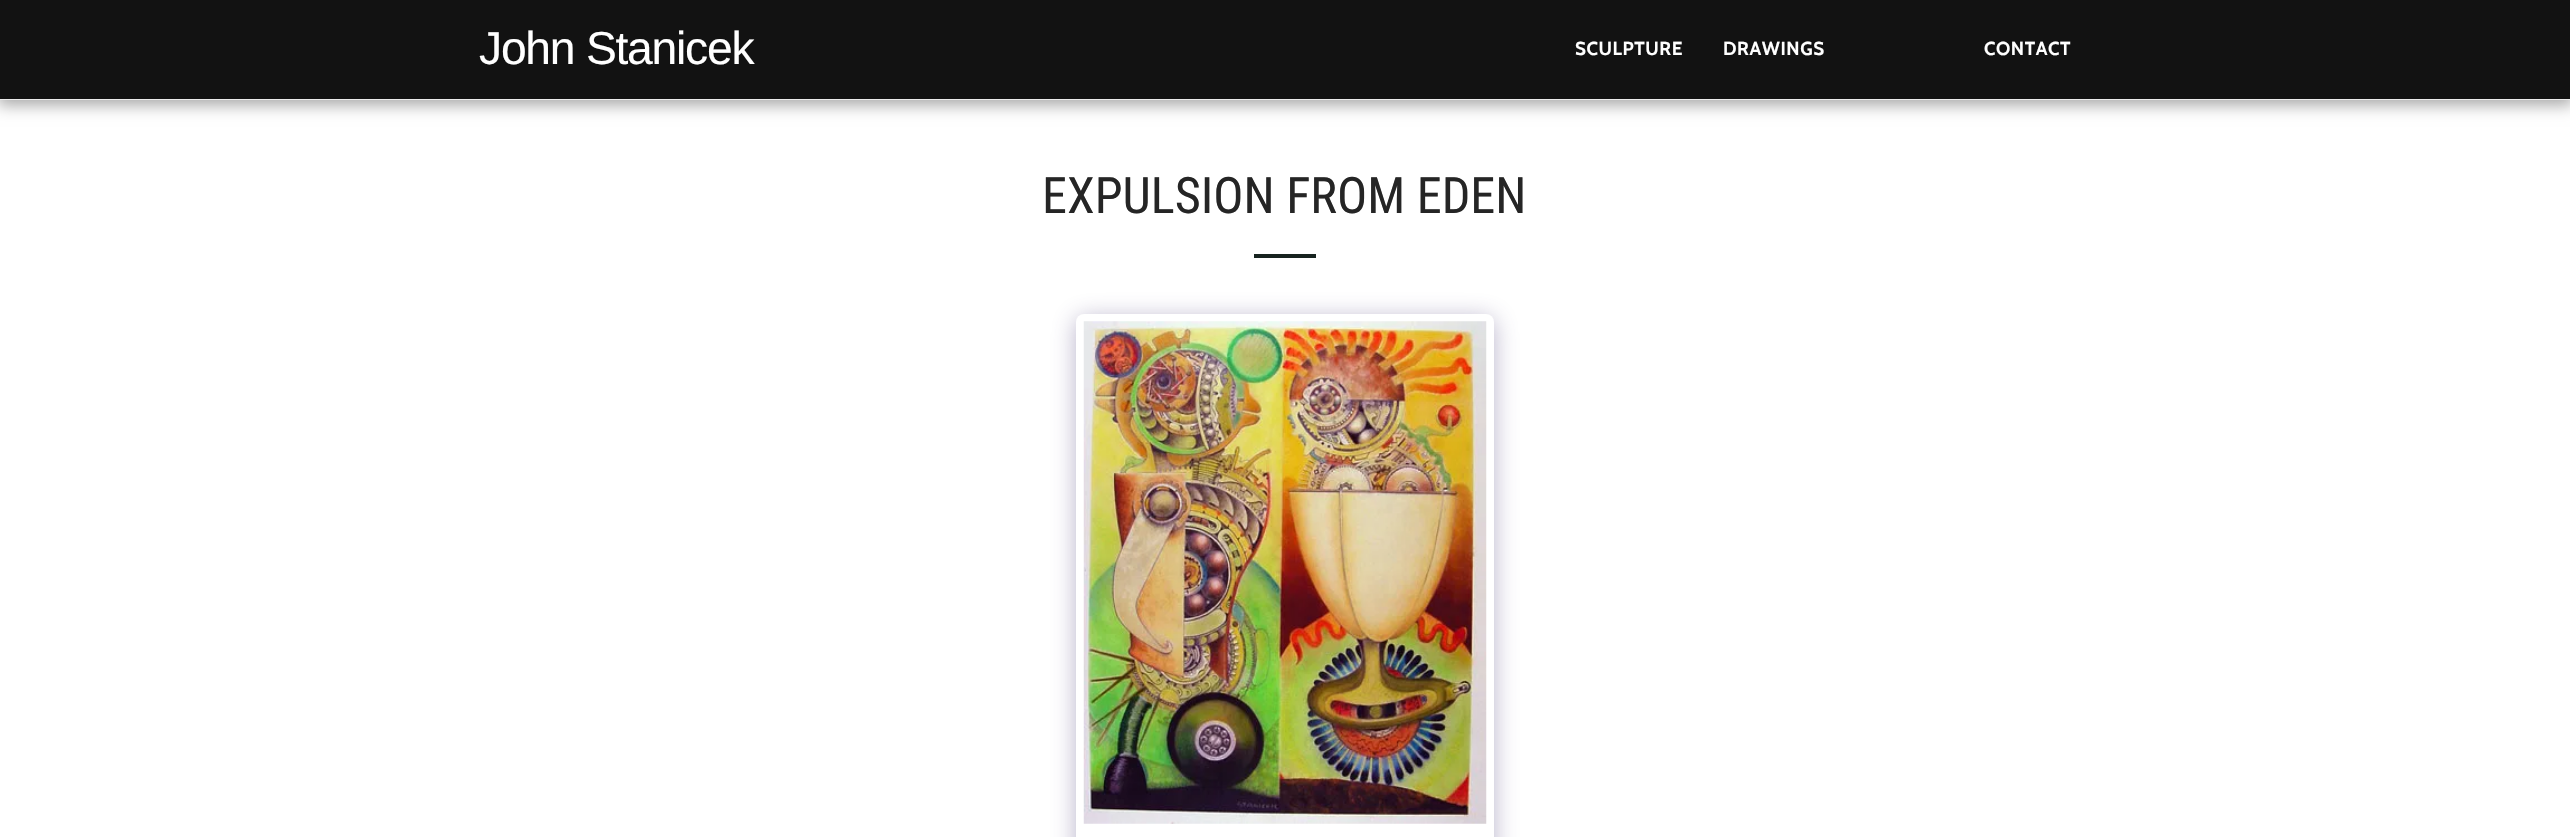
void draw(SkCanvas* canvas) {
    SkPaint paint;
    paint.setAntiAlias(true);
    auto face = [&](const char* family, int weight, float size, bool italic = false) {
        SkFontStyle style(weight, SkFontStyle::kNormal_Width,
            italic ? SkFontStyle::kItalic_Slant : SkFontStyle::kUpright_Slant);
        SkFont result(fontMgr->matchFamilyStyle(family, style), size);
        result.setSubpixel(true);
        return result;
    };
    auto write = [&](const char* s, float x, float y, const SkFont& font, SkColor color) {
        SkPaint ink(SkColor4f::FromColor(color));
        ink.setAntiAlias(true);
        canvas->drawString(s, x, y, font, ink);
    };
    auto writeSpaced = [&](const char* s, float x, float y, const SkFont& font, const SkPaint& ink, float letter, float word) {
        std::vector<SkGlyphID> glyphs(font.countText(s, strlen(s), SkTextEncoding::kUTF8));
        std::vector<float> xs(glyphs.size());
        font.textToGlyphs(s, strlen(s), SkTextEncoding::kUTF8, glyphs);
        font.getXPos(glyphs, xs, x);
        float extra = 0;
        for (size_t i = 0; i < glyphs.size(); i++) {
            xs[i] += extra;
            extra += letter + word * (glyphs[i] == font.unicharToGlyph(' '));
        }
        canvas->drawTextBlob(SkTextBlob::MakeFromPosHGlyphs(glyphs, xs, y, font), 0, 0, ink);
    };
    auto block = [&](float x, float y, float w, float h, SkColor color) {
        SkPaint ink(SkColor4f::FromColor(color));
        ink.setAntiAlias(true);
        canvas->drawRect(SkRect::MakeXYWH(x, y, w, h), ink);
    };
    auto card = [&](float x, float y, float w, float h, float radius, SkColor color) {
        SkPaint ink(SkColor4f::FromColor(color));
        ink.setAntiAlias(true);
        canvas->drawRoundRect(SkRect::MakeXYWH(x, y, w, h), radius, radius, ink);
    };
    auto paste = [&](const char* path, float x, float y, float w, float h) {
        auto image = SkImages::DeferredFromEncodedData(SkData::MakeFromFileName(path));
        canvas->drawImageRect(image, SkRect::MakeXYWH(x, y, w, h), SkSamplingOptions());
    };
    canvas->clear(SK_ColorWHITE);
    paint.setColor(SkColorSetARGB(89, 0, 0, 0));
    paint.setMaskFilter(SkMaskFilter::MakeBlur(kNormal_SkBlurStyle, 7.5f));
    canvas->drawRect(SkRect::MakeXYWH(-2, 0, 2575, 105), paint);
    paint.setMaskFilter(nullptr);
    block(0, 0, 2570, 99, SkColorSetRGB(18, 18, 18));
    block(0, 99, 2570, 1, SkColorSetRGB(235, 235, 235));
    auto kFont1 = face("Liberation Sans", 400, 46.25f);
    paint.setColor(SK_ColorWHITE);
    writeSpaced("John Stanicek", 479, 64, kFont1, paint, -1.25f, 0);
    auto kFont2 = face("Cabin", 700, 18.75f);
    writeSpaced("SCULPTURE", 1575, 55, kFont2, paint, 0.6f, 0);
    writeSpaced("DRAWINGS", 1723, 55, kFont2, paint, 0.6f, 0);
    writeSpaced("CONTACT", 1984, 55, kFont2, paint, 0.6f, 0);
    auto kFont3 = face("Roboto Condensed", 400, 50.25f);
    write("EXPULSION FROM EDEN", 1042, 213, kFont3, SkColorSetRGB(37, 37, 37));
    block(1254, 254, 62, 4, SkColorSetRGB(23, 35, 32));
    paint.setColor(SkColorSetARGB(102, 77, 63, 122));
    paint.setMaskFilter(SkMaskFilter::MakeBlur(kNormal_SkBlurStyle, 12.5f));
    canvas->drawRoundRect(SkRect::MakeXYWH(1076, 318, 418, 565), 8, 8, paint);
    paint.setMaskFilter(nullptr);
    card(1076, 314, 418, 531, 8, SK_ColorWHITE);
    paste("pic1.png", 1083, 321, 404, 503);
}
